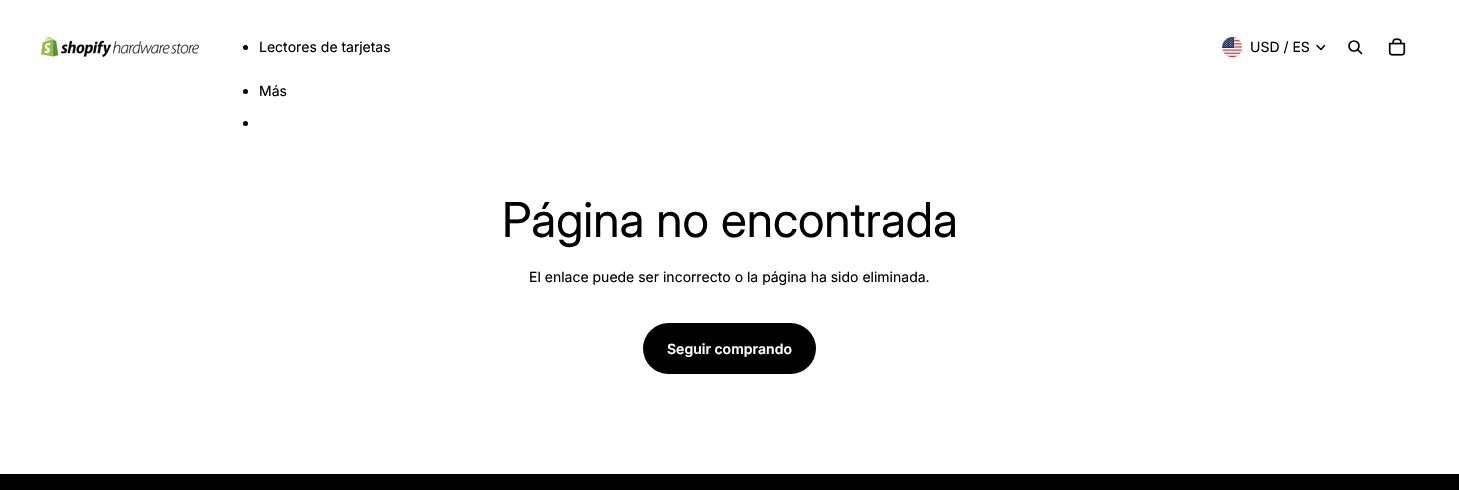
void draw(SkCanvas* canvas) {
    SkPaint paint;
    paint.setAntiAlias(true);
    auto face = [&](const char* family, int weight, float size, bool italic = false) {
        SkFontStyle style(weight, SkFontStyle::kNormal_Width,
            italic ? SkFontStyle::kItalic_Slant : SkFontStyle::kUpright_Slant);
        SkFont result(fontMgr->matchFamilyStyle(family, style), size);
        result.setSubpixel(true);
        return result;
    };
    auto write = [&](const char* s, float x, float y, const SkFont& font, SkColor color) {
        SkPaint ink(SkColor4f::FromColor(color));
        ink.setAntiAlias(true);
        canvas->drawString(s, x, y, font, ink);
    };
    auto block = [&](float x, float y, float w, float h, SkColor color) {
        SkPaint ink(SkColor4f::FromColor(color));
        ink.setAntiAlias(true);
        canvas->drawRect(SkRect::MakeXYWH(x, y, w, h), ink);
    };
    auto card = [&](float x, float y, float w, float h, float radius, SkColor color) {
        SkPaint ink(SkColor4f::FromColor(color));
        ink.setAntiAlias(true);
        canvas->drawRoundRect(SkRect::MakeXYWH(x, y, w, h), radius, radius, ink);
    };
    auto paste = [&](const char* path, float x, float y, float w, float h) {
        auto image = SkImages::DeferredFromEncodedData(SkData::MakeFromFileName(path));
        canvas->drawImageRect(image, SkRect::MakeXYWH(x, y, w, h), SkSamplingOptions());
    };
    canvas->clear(SK_ColorWHITE);
    paste("pic1.png", 41, 37, 158, 20);
    paint.setColor(SK_ColorBLACK);
    canvas->drawCircle(245.5f, 47.5f, 2.5f, paint);
    auto kFont1 = face("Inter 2", 400, 14);
    write("Lectores de tarjetas", 259, 52, kFont1, SK_ColorBLACK);
    canvas->drawCircle(245.5f, 91.5f, 2.5f, paint);
    write("Más", 259, 96, kFont1, SK_ColorBLACK);
    canvas->drawCircle(245.5f, 123.5f, 2.5f, paint);
    paste("pic2.png", 1222, 37, 20, 20);
    write("USD / ES", 1250, 52, kFont1, SK_ColorBLACK);
    paint.setStyle(SkPaint::kStroke_Style);
    paint.setStrokeWidth(1.5f);
    paint.setStrokeCap(SkPaint::kRound_Cap);
    paint.setStrokeJoin(SkPaint::kRound_Join);
    canvas->drawPath(SkPathBuilder().moveTo(1324.5f, 45.5f).lineTo(1321, 49.5f).lineTo(1317, 45.5f).detach(), paint);
    paint.setStrokeWidth(1.7f);
    paint.setStrokeCap(SkPaint::kButt_Cap);
    paint.setStrokeJoin(SkPaint::kMiter_Join);
    canvas->drawCircle(1354, 46, 5, paint);
    paint.setStrokeCap(SkPaint::kRound_Cap);
    paint.setStrokeJoin(SkPaint::kRound_Join);
    canvas->drawPath(SkPathBuilder().moveTo(1358, 50).lineTo(1361.5f, 53.5f).detach(), paint);
    paste("pic3.png", 1388, 38, 18, 18);
    auto kFont2 = face("Inter", 400, 48);
    write("Página no encontrada", 502, 237, kFont2, SK_ColorBLACK);
    write("El enlace puede ser incorrecto o la página ha sido eliminada.", 529, 282, kFont1, SK_ColorBLACK);
    card(643, 323, 173, 51, 25.5f, SK_ColorBLACK);
    auto kFont3 = face("Inter", 600, 14);
    write("Seguir comprando", 667, 354, kFont3, SK_ColorWHITE);
    block(0, 474, 1459, 16, SK_ColorBLACK);
}
